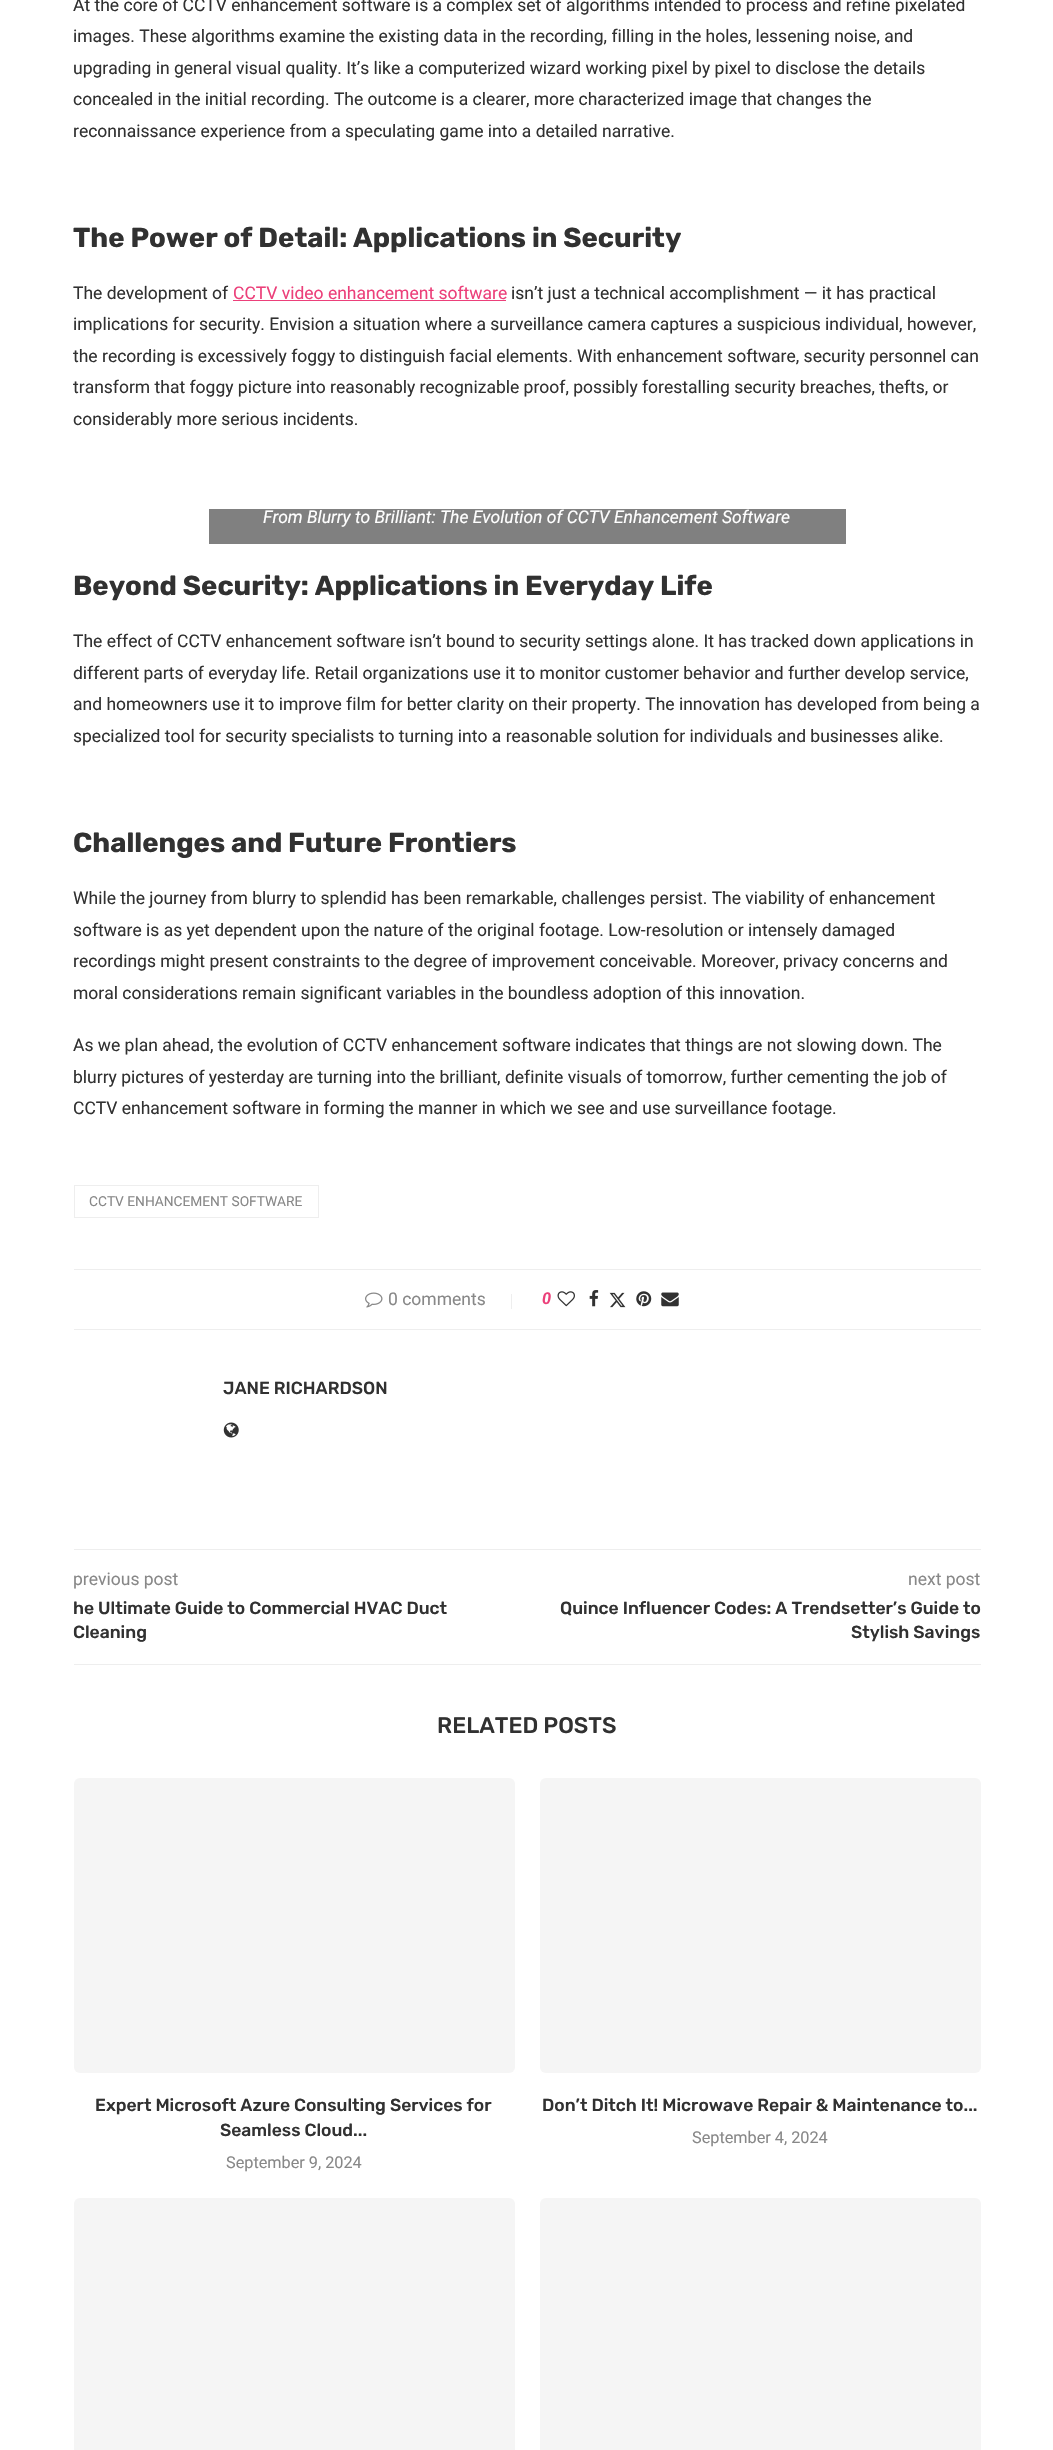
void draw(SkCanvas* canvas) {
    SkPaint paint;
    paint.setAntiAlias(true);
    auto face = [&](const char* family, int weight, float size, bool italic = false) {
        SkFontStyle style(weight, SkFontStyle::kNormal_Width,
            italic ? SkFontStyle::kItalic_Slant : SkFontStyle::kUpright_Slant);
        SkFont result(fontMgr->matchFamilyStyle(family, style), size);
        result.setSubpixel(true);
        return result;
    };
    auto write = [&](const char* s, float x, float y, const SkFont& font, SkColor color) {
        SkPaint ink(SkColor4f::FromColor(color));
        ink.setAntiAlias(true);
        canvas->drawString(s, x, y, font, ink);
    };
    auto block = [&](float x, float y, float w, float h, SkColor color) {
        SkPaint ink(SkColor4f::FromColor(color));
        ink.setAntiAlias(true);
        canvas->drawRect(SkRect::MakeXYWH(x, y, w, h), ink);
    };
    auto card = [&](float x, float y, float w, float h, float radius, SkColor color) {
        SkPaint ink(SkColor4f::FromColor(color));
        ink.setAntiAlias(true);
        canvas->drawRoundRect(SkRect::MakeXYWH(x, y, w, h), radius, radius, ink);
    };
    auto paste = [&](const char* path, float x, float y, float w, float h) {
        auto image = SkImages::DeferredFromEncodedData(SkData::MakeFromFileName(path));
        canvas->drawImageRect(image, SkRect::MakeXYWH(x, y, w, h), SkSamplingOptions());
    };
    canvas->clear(SK_ColorWHITE);
    auto kFont1 = face("Roboto", 400, 17.5f);
    write("At the core of CCTV enhancement software is a complex set of algorithms intended to process and refine pixelated", 73, 11, kFont1, SkColorSetRGB(49, 49, 49));
    write("images. These algorithms examine the existing data in the recording, filling in the holes, lessening noise, and", 73, 42, kFont1, SkColorSetRGB(49, 49, 49));
    write("upgrading in general visual quality. It’s like a computerized wizard working pixel by pixel to disclose the details", 73, 74, kFont1, SkColorSetRGB(49, 49, 49));
    write("concealed in the initial recording. The outcome is a clearer, more characterized image that changes the", 73, 105, kFont1, SkColorSetRGB(49, 49, 49));
    write("reconnaissance experience from a speculating game into a detailed narrative.", 73, 137, kFont1, SkColorSetRGB(49, 49, 49));
    auto kFont2 = face("Rubik", 700, 27.5f);
    write("The Power of Detail: Applications in Security", 73, 247, kFont2, SkColorSetRGB(49, 49, 49));
    write("The development of", 73, 299, kFont1, SkColorSetRGB(49, 49, 49));
    write("CCTV video enhancement software", 233, 299, kFont1, SkColorSetRGB(236, 64, 122));
    block(233, 300, 273, 1, SkColorSetRGB(236, 64, 122));
    write("isn’t just a technical accomplishment — it has practical", 511, 299, kFont1, SkColorSetRGB(49, 49, 49));
    write("implications for security. Envision a situation where a surveillance camera captures a suspicious individual, however,", 73, 330, kFont1, SkColorSetRGB(49, 49, 49));
    write("the recording is excessively foggy to distinguish facial elements. With enhancement software, security personnel can", 73, 362, kFont1, SkColorSetRGB(49, 49, 49));
    write("transform that foggy picture into reasonably recognizable proof, possibly forestalling security breaches, thefts, or", 73, 393, kFont1, SkColorSetRGB(49, 49, 49));
    write("considerably more serious incidents.", 73, 425, kFont1, SkColorSetRGB(49, 49, 49));
    block(209, 509, 637, 35, SkColorSetRGB(128, 128, 128));
    auto kFont3 = face("Roboto", 400, 17.5f, true);
    write("From Blurry to Brilliant: The Evolution of CCTV Enhancement Software", 263, 523, kFont3, SK_ColorWHITE);
    write("Beyond Security: Applications in Everyday Life", 73, 595, kFont2, SkColorSetRGB(49, 49, 49));
    write("The effect of CCTV enhancement software isn’t bound to security settings alone. It has tracked down applications in", 73, 647, kFont1, SkColorSetRGB(49, 49, 49));
    write("different parts of everyday life. Retail organizations use it to monitor customer behavior and further develop service,", 73, 679, kFont1, SkColorSetRGB(49, 49, 49));
    write("and homeowners use it to improve film for better clarity on their property. The innovation has developed from being a", 73, 710, kFont1, SkColorSetRGB(49, 49, 49));
    write("specialized tool for security specialists to turning into a reasonable solution for individuals and businesses alike.", 73, 742, kFont1, SkColorSetRGB(49, 49, 49));
    write("Challenges and Future Frontiers", 73, 852, kFont2, SkColorSetRGB(49, 49, 49));
    write("While the journey from blurry to splendid has been remarkable, challenges persist. The viability of enhancement", 73, 904, kFont1, SkColorSetRGB(49, 49, 49));
    write("software is as yet dependent upon the nature of the original footage. Low-resolution or intensely damaged", 73, 936, kFont1, SkColorSetRGB(49, 49, 49));
    write("recordings might present constraints to the degree of improvement conceivable. Moreover, privacy concerns and", 73, 967, kFont1, SkColorSetRGB(49, 49, 49));
    write("moral considerations remain significant variables in the boundless adoption of this innovation.", 73, 999, kFont1, SkColorSetRGB(49, 49, 49));
    write("As we plan ahead, the evolution of CCTV enhancement software indicates that things are not slowing down. The", 73, 1051, kFont1, SkColorSetRGB(49, 49, 49));
    write("blurry pictures of yesterday are turning into the brilliant, definite visuals of tomorrow, further cementing the job of", 73, 1083, kFont1, SkColorSetRGB(49, 49, 49));
    write("CCTV enhancement software in forming the manner in which we see and use surveillance footage.", 73, 1114, kFont1, SkColorSetRGB(49, 49, 49));
    paint.setStyle(SkPaint::kStroke_Style);
    paint.setStrokeWidth(1);
    paint.setColor(SkColorSetRGB(238, 238, 238));
    canvas->drawRect(SkRect::MakeXYWH(74.5f, 1185.5f, 244, 32), paint);
    auto kFont4 = face("Roboto", 400, 13.75f);
    write("CCTV ENHANCEMENT SOFTWARE", 89, 1206, kFont4, SkColorSetRGB(136, 136, 136));
    block(74, 1269, 907, 1, SkColorSetRGB(238, 238, 238));
    paste("pic1.png", 365, 1292, 18, 16);
    write("0 comments", 388, 1305, kFont1, SkColorSetRGB(136, 136, 136));
    block(511, 1294, 1, 15, SkColorSetRGB(238, 238, 238));
    auto kFont5 = face("Roboto", 700, 16.25f, true);
    write("0", 542, 1304, kFont5, SkColorSetRGB(236, 64, 122));
    paste("pic2.png", 557, 1291, 18, 16);
    paste("pic3.png", 589, 1290, 10, 17);
    paste("pic4.png", 609, 1292, 17, 16);
    paste("pic5.png", 636, 1291, 16, 16);
    paste("pic6.png", 661, 1292, 18, 15);
    block(74, 1329, 907, 1, SkColorSetRGB(238, 238, 238));
    auto kFont6 = face("Rubik", 500, 17.5f);
    write("JANE RICHARDSON", 223, 1394, kFont6, SkColorSetRGB(49, 49, 49));
    paste("pic7.png", 223, 1422, 16, 16);
    block(74, 1549, 907, 1, SkColorSetRGB(238, 238, 238));
    write("previous post", 73, 1585, kFont1, SkColorSetRGB(136, 136, 136));
    write("he Ultimate Guide to Commercial HVAC Duct", 73, 1614, kFont6, SkColorSetRGB(49, 49, 49));
    write("Cleaning", 73, 1638, kFont6, SkColorSetRGB(49, 49, 49));
    write("next post", 908, 1585, kFont1, SkColorSetRGB(136, 136, 136));
    write("Quince Influencer Codes: A Trendsetter’s Guide to", 560, 1614, kFont6, SkColorSetRGB(49, 49, 49));
    write("Stylish Savings", 851, 1638, kFont6, SkColorSetRGB(49, 49, 49));
    block(74, 1664, 907, 1, SkColorSetRGB(238, 238, 238));
    auto kFont7 = face("Rubik", 500, 22.5f);
    write("RELATED POSTS", 437, 1733, kFont7, SkColorSetRGB(49, 49, 49));
    card(74, 1778, 441, 295, 6, SkColorSetRGB(245, 245, 245));
    write("Expert Microsoft Azure Consulting Services for", 95, 2111, kFont6, SkColorSetRGB(49, 49, 49));
    write("Seamless Cloud...", 220, 2136, kFont6, SkColorSetRGB(49, 49, 49));
    auto kFont8 = face("Roboto", 400, 16.25f);
    write("September 9, 2024", 226, 2168, kFont8, SkColorSetRGB(136, 136, 136));
    card(540, 1778, 441, 295, 6, SkColorSetRGB(245, 245, 245));
    write("Don’t Ditch It! Microwave Repair & Maintenance to...", 542, 2111, kFont6, SkColorSetRGB(49, 49, 49));
    write("September 4, 2024", 692, 2143, kFont8, SkColorSetRGB(136, 136, 136));
    card(74, 2198, 441, 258, 6, SkColorSetRGB(245, 245, 245));
    card(540, 2198, 441, 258, 6, SkColorSetRGB(245, 245, 245));
}
